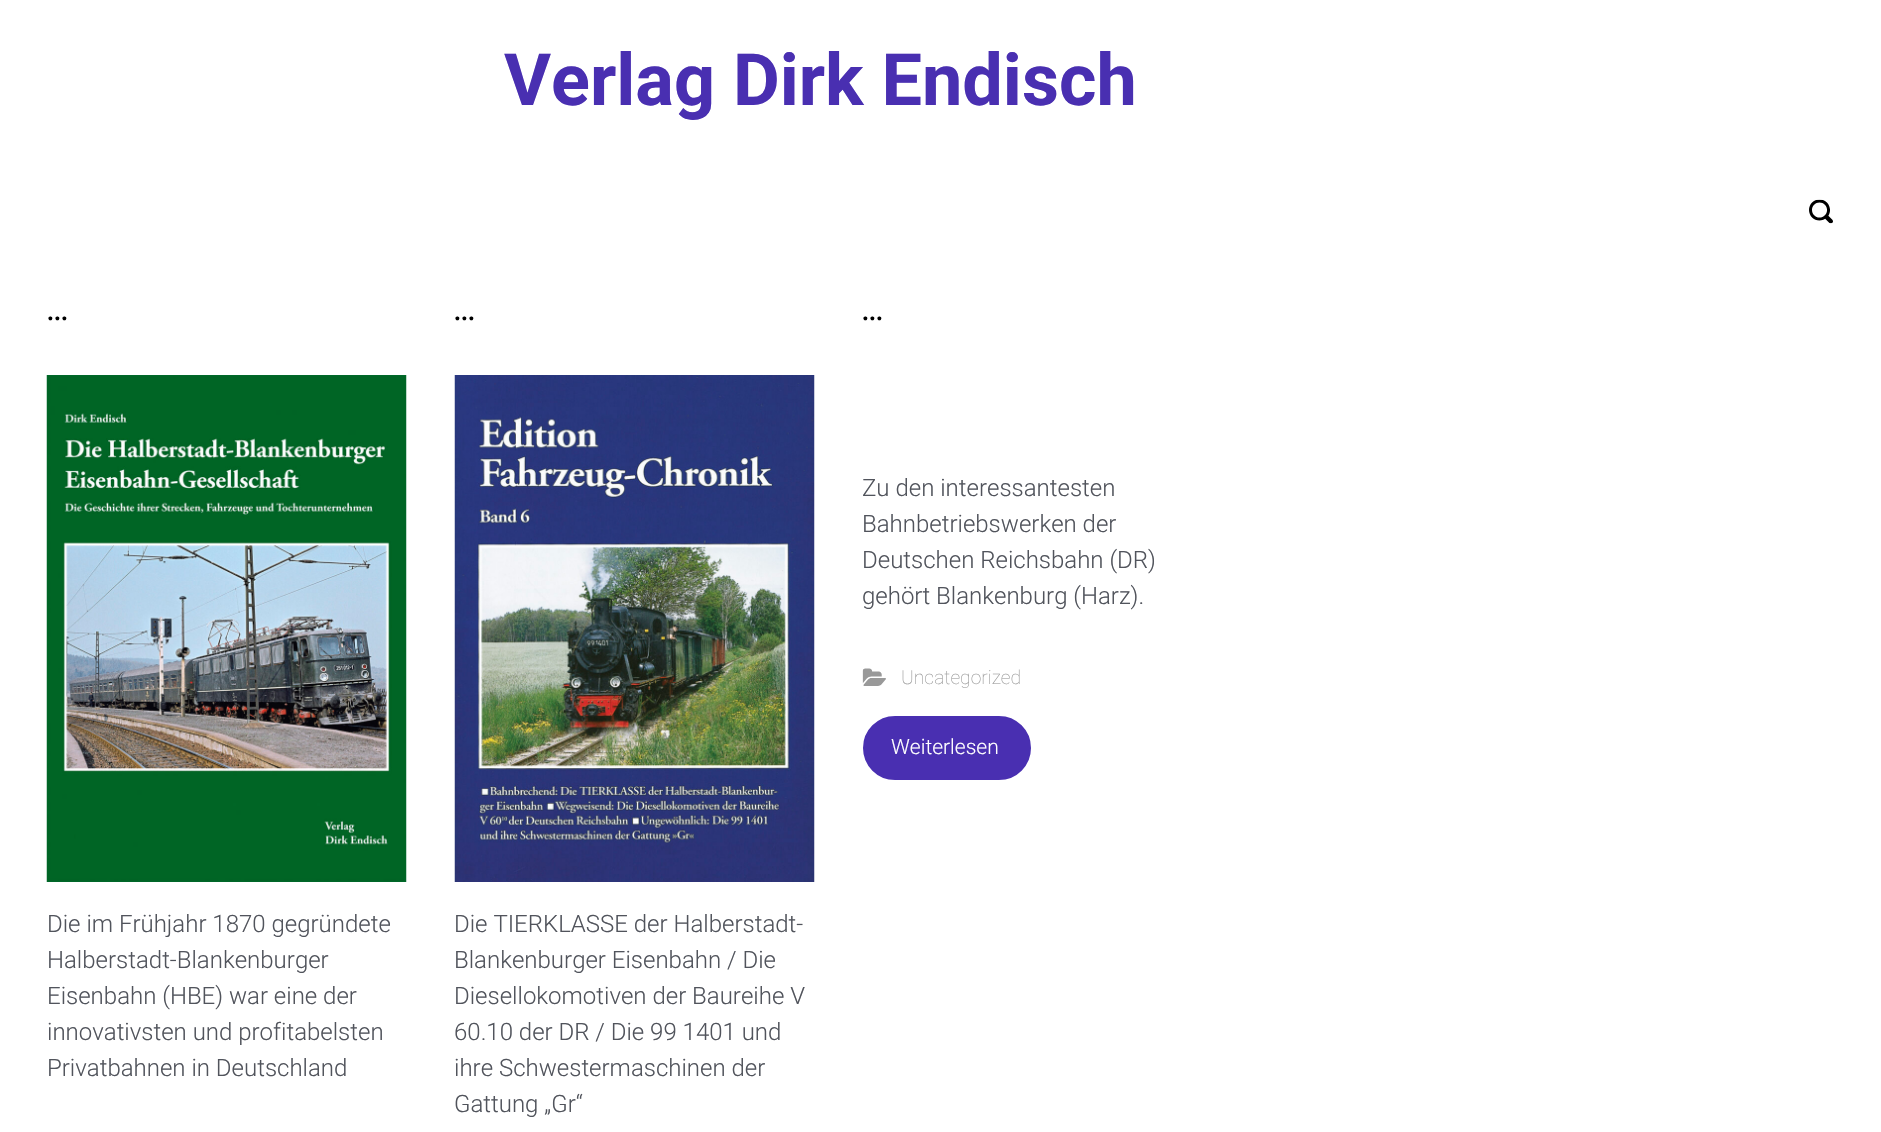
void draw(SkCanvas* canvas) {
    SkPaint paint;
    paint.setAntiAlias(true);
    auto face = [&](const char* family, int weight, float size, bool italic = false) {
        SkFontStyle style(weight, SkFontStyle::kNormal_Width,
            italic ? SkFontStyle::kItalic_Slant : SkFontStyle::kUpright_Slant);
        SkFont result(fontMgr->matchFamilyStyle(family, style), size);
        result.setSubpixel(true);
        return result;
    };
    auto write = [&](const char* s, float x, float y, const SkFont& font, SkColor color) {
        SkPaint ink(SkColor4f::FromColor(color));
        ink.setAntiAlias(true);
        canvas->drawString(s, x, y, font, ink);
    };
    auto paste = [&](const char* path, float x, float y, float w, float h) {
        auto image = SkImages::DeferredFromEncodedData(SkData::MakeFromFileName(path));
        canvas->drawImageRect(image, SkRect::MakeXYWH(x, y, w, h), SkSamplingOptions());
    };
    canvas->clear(SK_ColorWHITE);
    auto kFont1 = face("Roboto", 700, 72);
    write("Verlag Dirk Endisch", 504, 105, kFont1, SkColorSetRGB(73, 47, 177));
    paste("pic1.png", 1809, 199, 24, 25);
    auto kFont2 = face("Roboto", 700, 24);
    write("...", 47, 320, kFont2, SK_ColorBLACK);
    paste("pic2.png", 46, 375, 361, 507);
    auto kFont3 = face("Roboto", 300, 24);
    write("Die im Frühjahr 1870 gegründete", 47, 932, kFont3, SkColorSetRGB(81, 84, 92));
    write("Halberstadt-Blankenburger", 47, 968, kFont3, SkColorSetRGB(81, 84, 92));
    write("Eisenbahn (HBE) war eine der", 47, 1004, kFont3, SkColorSetRGB(81, 84, 92));
    write("innovativsten und profitabelsten", 47, 1040, kFont3, SkColorSetRGB(81, 84, 92));
    write("Privatbahnen in Deutschland", 47, 1076, kFont3, SkColorSetRGB(81, 84, 92));
    write("...", 454, 320, kFont2, SK_ColorBLACK);
    paste("pic3.png", 454, 375, 361, 507);
    write("Die TIERKLASSE der Halberstadt-", 454, 932, kFont3, SkColorSetRGB(81, 84, 92));
    write("Blankenburger Eisenbahn / Die", 454, 968, kFont3, SkColorSetRGB(81, 84, 92));
    write("Diesellokomotiven der Baureihe V", 454, 1004, kFont3, SkColorSetRGB(81, 84, 92));
    write("60.10 der DR / Die 99 1401 und", 454, 1040, kFont3, SkColorSetRGB(81, 84, 92));
    write("ihre Schwestermaschinen der", 454, 1076, kFont3, SkColorSetRGB(81, 84, 92));
    write("Gattung „Gr“", 454, 1112, kFont3, SkColorSetRGB(81, 84, 92));
    write("...", 862, 320, kFont2, SK_ColorBLACK);
    write("Zu den interessantesten", 862, 496, kFont3, SkColorSetRGB(81, 84, 92));
    write("Bahnbetriebswerken der", 862, 532, kFont3, SkColorSetRGB(81, 84, 92));
    write("Deutschen Reichsbahn (DR)", 862, 568, kFont3, SkColorSetRGB(81, 84, 92));
    write("gehört Blankenburg (Harz).", 862, 604, kFont3, SkColorSetRGB(81, 84, 92));
    paste("pic4.png", 862, 668, 24, 18);
    auto kFont4 = face("Roboto", 100, 19.25f);
    write("Uncategorized", 901, 684, kFont4, SkColorSetRGB(153, 153, 153));
    paint.setColor(SkColorSetRGB(73, 47, 177));
    canvas->drawRoundRect(SkRect::MakeXYWH(865.5f, 718.5f, 163, 59), 29.5f, 29.5f, paint);
    paint.setStyle(SkPaint::kStroke_Style);
    paint.setStrokeWidth(5);
    canvas->drawRoundRect(SkRect::MakeXYWH(865.5f, 718.5f, 163, 59), 29.5f, 29.5f, paint);
    auto kFont5 = face("Roboto", 300, 21);
    write("Weiterlesen", 891, 754, kFont5, SK_ColorWHITE);
}
